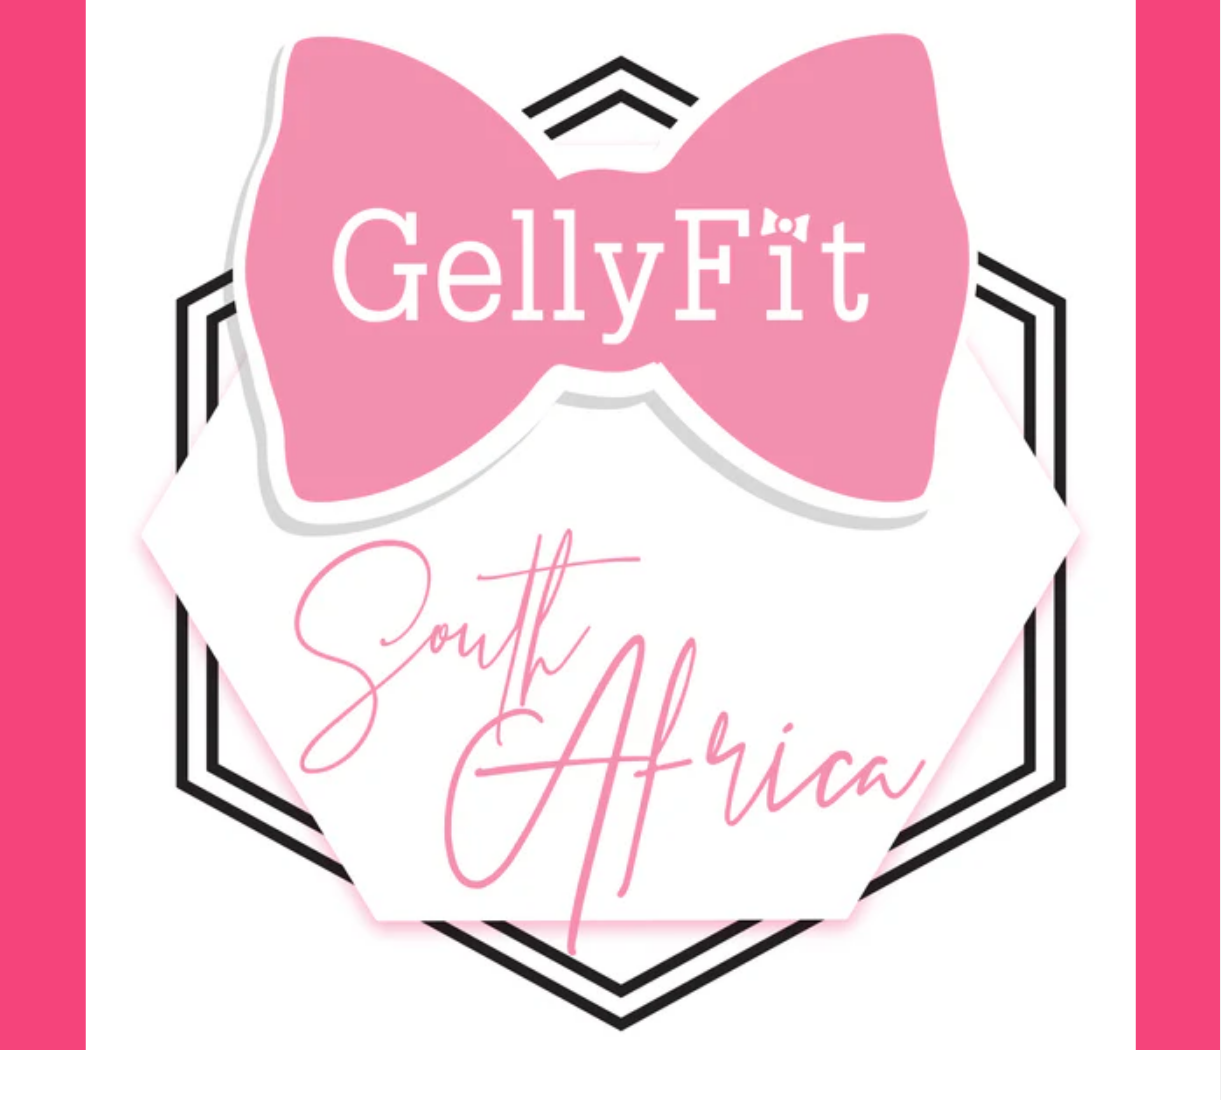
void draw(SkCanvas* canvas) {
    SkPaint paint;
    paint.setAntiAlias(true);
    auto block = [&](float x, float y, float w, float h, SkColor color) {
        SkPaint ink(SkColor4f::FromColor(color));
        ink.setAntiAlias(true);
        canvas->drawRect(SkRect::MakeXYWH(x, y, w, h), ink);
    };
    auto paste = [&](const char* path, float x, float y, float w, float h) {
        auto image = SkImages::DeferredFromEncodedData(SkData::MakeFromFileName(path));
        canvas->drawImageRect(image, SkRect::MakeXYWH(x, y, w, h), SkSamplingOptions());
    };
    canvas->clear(SK_ColorWHITE);
    block(1220, 0, 1, 1100, SkColorSetRGB(240, 240, 240));
    block(0, 0, 1220, 1050, SkColorSetRGB(245, 68, 123));
    paste("pic1.png", 85, 0, 1051, 1050);
}
